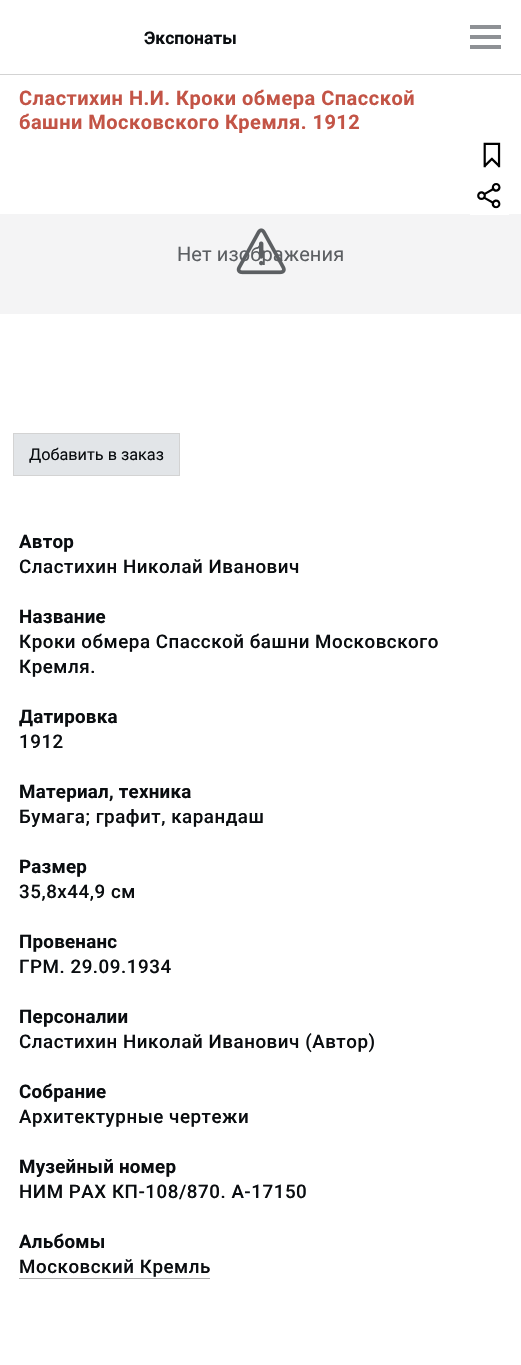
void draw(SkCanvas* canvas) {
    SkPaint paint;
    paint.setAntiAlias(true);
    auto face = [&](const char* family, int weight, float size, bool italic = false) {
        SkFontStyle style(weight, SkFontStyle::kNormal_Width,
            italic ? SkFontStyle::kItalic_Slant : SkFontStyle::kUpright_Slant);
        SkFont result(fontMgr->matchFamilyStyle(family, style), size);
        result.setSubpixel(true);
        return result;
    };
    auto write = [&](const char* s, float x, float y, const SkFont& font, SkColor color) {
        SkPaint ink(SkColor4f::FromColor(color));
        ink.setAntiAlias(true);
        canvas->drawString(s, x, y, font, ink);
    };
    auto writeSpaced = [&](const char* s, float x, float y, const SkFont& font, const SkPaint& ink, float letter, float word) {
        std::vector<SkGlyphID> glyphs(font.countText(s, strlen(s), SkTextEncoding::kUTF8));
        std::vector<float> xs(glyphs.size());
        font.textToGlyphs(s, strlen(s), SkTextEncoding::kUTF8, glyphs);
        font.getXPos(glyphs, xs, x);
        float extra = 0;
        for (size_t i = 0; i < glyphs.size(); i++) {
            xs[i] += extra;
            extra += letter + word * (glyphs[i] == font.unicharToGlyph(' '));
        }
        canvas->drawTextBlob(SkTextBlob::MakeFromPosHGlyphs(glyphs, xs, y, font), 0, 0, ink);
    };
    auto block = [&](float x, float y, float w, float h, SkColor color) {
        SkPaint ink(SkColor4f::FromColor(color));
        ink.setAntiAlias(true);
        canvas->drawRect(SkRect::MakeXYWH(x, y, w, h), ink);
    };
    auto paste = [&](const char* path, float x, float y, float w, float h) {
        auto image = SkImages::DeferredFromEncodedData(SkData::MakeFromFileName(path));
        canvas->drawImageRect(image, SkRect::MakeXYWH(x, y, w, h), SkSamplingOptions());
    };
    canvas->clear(SK_ColorWHITE);
    block(0, 74, 521, 1, SkColorSetRGB(211, 211, 211));
    auto kFont1 = face("Roboto", 700, 17.5f);
    write("Экспонаты", 144, 44, kFont1, SkColorSetRGB(10, 13, 16));
    block(470, 25, 31, 4, SkColorSetRGB(142, 145, 149));
    block(470, 35, 31, 4, SkColorSetRGB(142, 145, 149));
    block(470, 45, 31, 4, SkColorSetRGB(142, 145, 149));
    auto kFont2 = face("Roboto", 700, 20);
    paint.setColor(SkColorSetRGB(195, 84, 70));
    writeSpaced("Сластихин Н.И. Кроки обмера Спасской", 19, 105, kFont2, paint, 0.5f, 0);
    writeSpaced("башни Московского Кремля. 1912", 19, 129, kFont2, paint, 0.5f, 0);
    block(0, 214, 521, 100, SkColorSetRGB(244, 244, 245));
    auto kFont3 = face("Roboto", 400, 20);
    paint.setColor(SkColorSetRGB(92, 95, 98));
    writeSpaced("Нет изображения", 177, 261, kFont3, paint, 0.1f, 0);
    paste("pic1.png", 236, 228, 50, 47);
    paint.setColor(SkColorSetRGB(226, 229, 232));
    canvas->drawRect(SkRect::MakeXYWH(13.5f, 433.5f, 166, 42), paint);
    paint.setStyle(SkPaint::kStroke_Style);
    paint.setStrokeWidth(1);
    paint.setColor(SkColorSetRGB(211, 211, 211));
    canvas->drawRect(SkRect::MakeXYWH(13.5f, 433.5f, 166, 42), paint);
    auto kFont4 = face("Roboto", 400, 16.25f);
    write("Добавить в заказ", 29, 460, kFont4, SkColorSetRGB(10, 13, 16));
    block(470, 214, 39, 1, SK_ColorWHITE);
    paste("pic2.png", 483, 142, 18, 26);
    paste("pic3.png", 477, 183, 24, 26);
    auto kFont5 = face("Roboto", 700, 18.75f);
    paint.setStyle(SkPaint::kFill_Style);
    paint.setColor(SkColorSetRGB(10, 13, 16));
    writeSpaced("Автор", 19, 548, kFont5, paint, 0.25f, 0);
    auto kFont6 = face("Roboto", 500, 18.75f);
    writeSpaced("Сластихин Николай Иванович", 19, 573, kFont6, paint, 0.55f, 0);
    writeSpaced("Название", 19, 623, kFont5, paint, 0.25f, 0);
    writeSpaced("Кроки обмера Спасской башни Московского", 19, 648, kFont6, paint, 0.55f, 0);
    writeSpaced("Кремля.", 19, 673, kFont6, paint, 0.55f, 0);
    writeSpaced("Датировка", 19, 723, kFont5, paint, 0.25f, 0);
    writeSpaced("1912", 19, 748, kFont6, paint, 0.55f, 0);
    writeSpaced("Материал, техника", 19, 798, kFont5, paint, 0.25f, 0);
    writeSpaced("Бумага; графит, карандаш", 19, 823, kFont6, paint, 0.55f, 0);
    writeSpaced("Размер", 19, 873, kFont5, paint, 0.25f, 0);
    writeSpaced("35,8х44,9 см", 19, 898, kFont6, paint, 0.55f, 0);
    writeSpaced("Провенанс", 19, 948, kFont5, paint, 0.25f, 0);
    writeSpaced("ГРМ. 29.09.1934", 19, 973, kFont6, paint, 0.55f, 0);
    writeSpaced("Персоналии", 19, 1023, kFont5, paint, 0.25f, 0);
    writeSpaced("Сластихин Николай Иванович (Автор)", 19, 1048, kFont6, paint, 0.55f, 0);
    writeSpaced("Собрание", 19, 1098, kFont5, paint, 0.25f, 0);
    writeSpaced("Архитектурные чертежи", 19, 1123, kFont6, paint, 0.55f, 0);
    writeSpaced("Музейный номер", 19, 1173, kFont5, paint, 0.25f, 0);
    writeSpaced("НИМ РАХ КП-108/870. А-17150", 19, 1198, kFont6, paint, 0.55f, 0);
    writeSpaced("Альбомы", 19, 1248, kFont5, paint, 0.25f, 0);
    writeSpaced("Московский Кремль", 19, 1273, kFont6, paint, 0.55f, 0);
    block(19, 1278, 191, 1, SkColorSetRGB(172, 172, 172));
}
